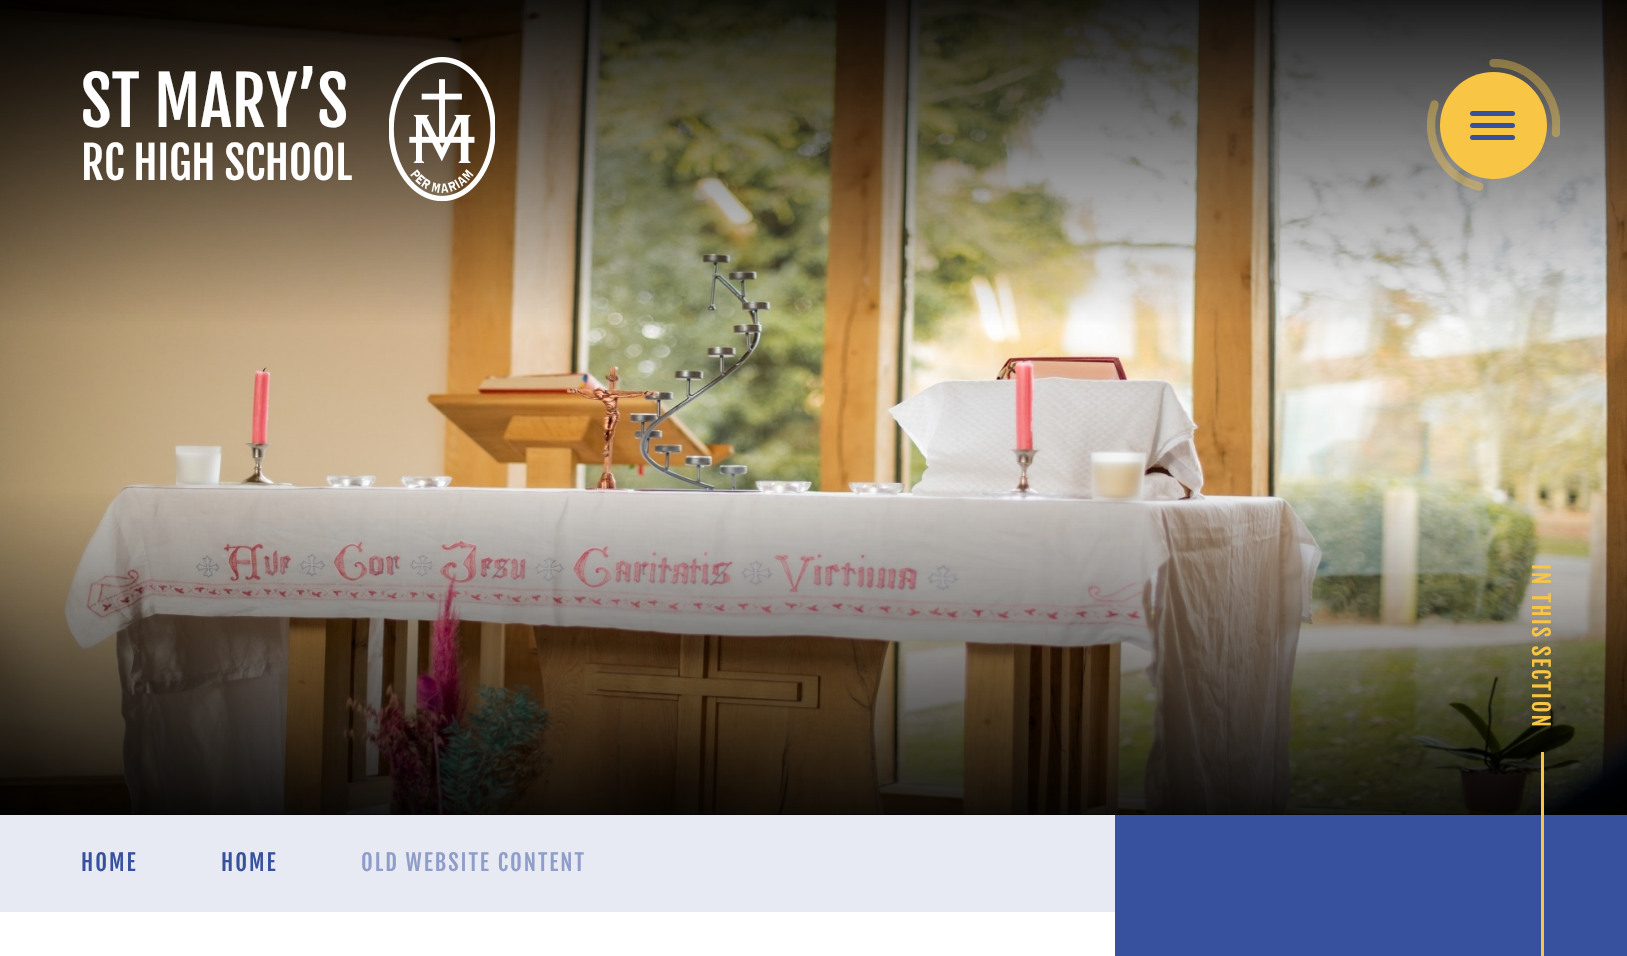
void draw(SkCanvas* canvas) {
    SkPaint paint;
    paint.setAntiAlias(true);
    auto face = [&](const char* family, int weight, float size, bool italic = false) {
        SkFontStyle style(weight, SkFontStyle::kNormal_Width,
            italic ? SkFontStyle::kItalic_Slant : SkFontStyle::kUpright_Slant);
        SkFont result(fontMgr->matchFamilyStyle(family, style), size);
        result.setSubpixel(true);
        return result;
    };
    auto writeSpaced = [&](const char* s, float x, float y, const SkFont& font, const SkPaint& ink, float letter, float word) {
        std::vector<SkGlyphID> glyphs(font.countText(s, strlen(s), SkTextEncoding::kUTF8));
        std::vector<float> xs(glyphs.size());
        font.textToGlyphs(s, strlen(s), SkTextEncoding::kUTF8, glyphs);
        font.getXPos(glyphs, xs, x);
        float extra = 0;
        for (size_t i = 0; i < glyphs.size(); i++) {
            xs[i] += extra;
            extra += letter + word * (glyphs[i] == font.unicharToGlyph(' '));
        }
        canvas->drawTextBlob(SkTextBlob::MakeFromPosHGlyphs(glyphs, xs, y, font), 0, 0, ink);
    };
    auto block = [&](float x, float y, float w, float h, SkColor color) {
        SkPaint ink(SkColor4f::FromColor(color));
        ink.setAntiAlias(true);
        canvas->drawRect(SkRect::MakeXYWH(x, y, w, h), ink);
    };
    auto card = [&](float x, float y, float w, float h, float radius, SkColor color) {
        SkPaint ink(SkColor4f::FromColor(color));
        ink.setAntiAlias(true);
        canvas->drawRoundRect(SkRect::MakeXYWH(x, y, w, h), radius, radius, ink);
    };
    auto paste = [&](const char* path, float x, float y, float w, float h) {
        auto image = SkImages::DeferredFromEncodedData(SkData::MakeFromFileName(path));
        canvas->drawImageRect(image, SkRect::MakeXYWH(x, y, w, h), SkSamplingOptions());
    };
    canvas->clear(SK_ColorWHITE);
    block(0, 814, 1627, 1, SkColorSetRGB(17, 17, 17));
    paste("pic1.png", 0, 0, 1627, 815);
    {
        const SkColor colors[] = {SkColorSetARGB(230, 0, 0, 0), SkColorSetARGB(0, 0, 0, 0), SkColorSetARGB(0, 0, 0, 0), SkColorSetARGB(230, 0, 0, 0)};
        const float stops[] = {0, 0.4f, 0.6f, 1};
        const SkPoint ends[] = {{814, 0}, {814, 815}};
        paint.setShader(SkGradientShader::MakeLinear(ends, colors, stops, 4, SkTileMode::kClamp));
        paint.setAlpha(255);
    }
    canvas->drawRect(SkRect::MakeXYWH(0, 0, 1627, 815), paint);
    auto kFont1 = face("Fjalla One", 400, 66.5f);
    paint.setShader(nullptr);
    paint.setColor(SK_ColorWHITE);
    writeSpaced("ST MARY’S", 81, 127, kFont1, paint, 0.25f, 0);
    auto kFont2 = face("Fjalla One", 400, 44.75f);
    writeSpaced("RC HIGH SCHOOL", 81, 180, kFont2, paint, -0.25f, 0);
    paste("pic2.png", 389, 57, 106, 144);
    paint.setColor(SkColorSetRGB(248, 197, 68));
    canvas->drawCircle(1493.5f, 125.5f, 53.5f, paint);
    canvas->save();
    canvas->clipRect(SkRect::MakeXYWH(1427, 59, 133, 133));
    paint.setStyle(SkPaint::kStroke_Style);
    paint.setStrokeWidth(8.4f);
    paint.setStrokeCap(SkPaint::kRound_Cap);
    paint.setColor(SkColorSetARGB(102, 248, 197, 68));
    canvas->drawPath(SkPathBuilder().moveTo(1493.5f, 63).cubicTo(1531, 63, 1560, 96, 1556, 133).moveTo(1479.5f, 186.5f).cubicTo(1443, 178, 1422.5f, 139, 1434.5f, 104.5f).detach(), paint);
    canvas->restore();
    card(1470, 111, 45, 5, 2.5f, SkColorSetRGB(55, 81, 159));
    card(1470, 123, 45, 5, 2.5f, SkColorSetRGB(55, 81, 159));
    card(1470, 135, 45, 5, 2.5f, SkColorSetRGB(55, 81, 159));
    block(1115, 815, 512, 141, SkColorSetRGB(55, 81, 159));
    auto kFont3 = face("Fjalla One", 400, 22.5f);
    paint.setStyle(SkPaint::kFill_Style);
    paint.setColor(SkColorSetRGB(248, 197, 68));
    canvas->save();
    canvas->rotate(90, 1532, 564);
    writeSpaced("IN THIS SECTION", 1532, 564, kFont3, paint, 2, 0);
    canvas->restore();
    block(1541, 752, 3, 204, SkColorSetRGB(248, 197, 68));
    block(0, 815, 1115, 97, SkColorSetRGB(231, 234, 242));
    paint.setColor(SkColorSetRGB(55, 81, 159));
    writeSpaced("HOME", 81, 871, kFont3, paint, 2, 0);
    writeSpaced("HOME", 221, 871, kFont3, paint, 2, 0);
    paint.setColor(SkColorSetRGB(143, 158, 201));
    writeSpaced("OLD WEBSITE CONTENT", 361, 871, kFont3, paint, 2, 0);
}
